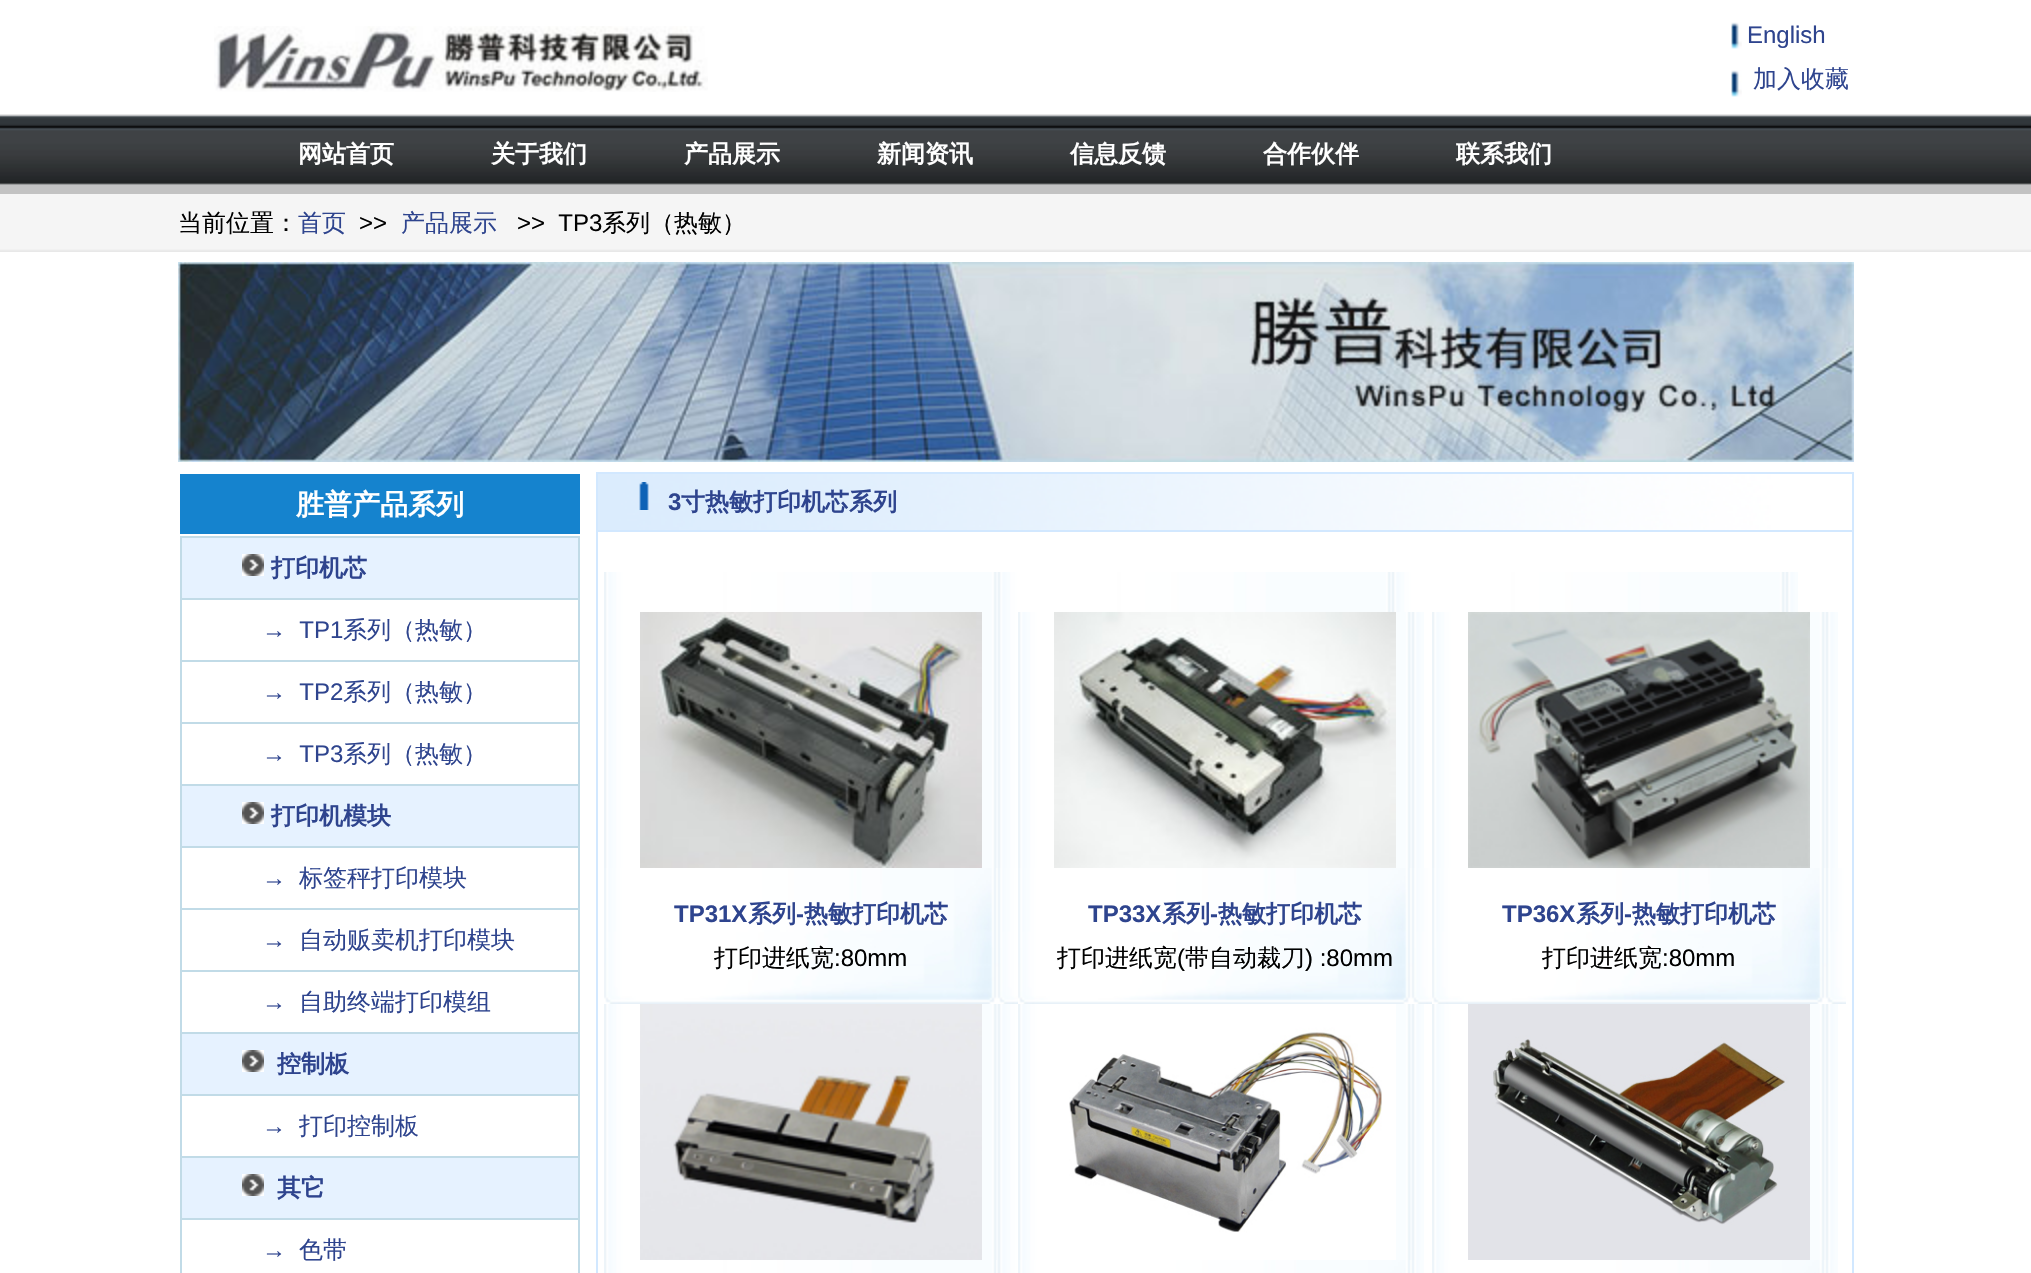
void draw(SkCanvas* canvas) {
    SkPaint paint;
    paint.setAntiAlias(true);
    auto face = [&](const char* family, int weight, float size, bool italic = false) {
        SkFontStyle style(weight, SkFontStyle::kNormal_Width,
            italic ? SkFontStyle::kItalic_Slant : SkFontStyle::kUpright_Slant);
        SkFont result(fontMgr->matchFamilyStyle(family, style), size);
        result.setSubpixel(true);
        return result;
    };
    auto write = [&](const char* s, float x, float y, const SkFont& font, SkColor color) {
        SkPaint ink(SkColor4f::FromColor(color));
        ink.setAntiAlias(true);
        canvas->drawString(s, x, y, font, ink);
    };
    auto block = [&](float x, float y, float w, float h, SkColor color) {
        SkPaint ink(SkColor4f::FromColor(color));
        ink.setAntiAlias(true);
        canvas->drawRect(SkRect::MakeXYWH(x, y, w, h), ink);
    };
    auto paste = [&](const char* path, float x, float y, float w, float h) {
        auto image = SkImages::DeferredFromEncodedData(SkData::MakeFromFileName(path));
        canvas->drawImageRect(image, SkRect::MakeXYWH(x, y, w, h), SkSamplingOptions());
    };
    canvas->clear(SK_ColorWHITE);
    paste("pic1.png", 214, 26, 494, 66);
    paste("pic2.png", 1731, 22, 11, 27);
    auto kFont1 = face("Liberation Sans", 400, 24);
    write("English", 1747, 43, kFont1, SkColorSetRGB(46, 68, 142));
    paste("pic2.png", 1731, 70, 11, 27);
    auto kFont2 = face("WenQuanYi Zen Hei", 500, 24);
    write("加入收藏", 1753, 87, kFont2, SkColorSetRGB(46, 68, 142));
    paste("pic3.png", 0, 114, 2031, 80);
    auto kFont3 = face("WenQuanYi Zen Hei", 700, 24);
    write("网站首页", 298, 162, kFont3, SK_ColorWHITE);
    write("关于我们", 491, 162, kFont3, SK_ColorWHITE);
    write("产品展示", 684, 162, kFont3, SK_ColorWHITE);
    write("新闻资讯", 877, 162, kFont3, SK_ColorWHITE);
    write("信息反馈", 1070, 162, kFont3, SK_ColorWHITE);
    write("合作伙伴", 1263, 162, kFont3, SK_ColorWHITE);
    write("联系我们", 1456, 162, kFont3, SK_ColorWHITE);
    paste("pic4.png", 0, 194, 2031, 58);
    write("当前位置：", 178, 231, kFont2, SK_ColorBLACK);
    write("首页", 298, 231, kFont2, SkColorSetRGB(46, 68, 142));
    write(">>", 359, 231, kFont1, SK_ColorBLACK);
    write("产品展示", 401, 231, kFont2, SkColorSetRGB(46, 68, 142));
    write(">>  TP3", 517, 231, kFont1, SK_ColorBLACK);
    write("系列（热敏）", 602, 231, kFont2, SK_ColorBLACK);
    paste("pic5.png", 178, 262, 1676, 200);
    block(180, 474, 400, 60, SkColorSetRGB(21, 131, 206));
    auto kFont4 = face("WenQuanYi Zen Hei", 700, 28);
    write("胜普产品系列", 296, 514, kFont4, SK_ColorWHITE);
    block(180, 536, 400, 737, SkColorSetRGB(193, 219, 231));
    block(182, 538, 396, 60, SkColorSetRGB(230, 242, 255));
    paste("pic6.png", 242, 554, 22, 22);
    write("打印机芯", 271, 576, kFont3, SkColorSetRGB(46, 68, 142));
    block(182, 600, 396, 60, SK_ColorWHITE);
    write("→  TP1", 262, 638, kFont1, SkColorSetRGB(46, 68, 142));
    write("系列（热敏）", 343, 638, kFont2, SkColorSetRGB(46, 68, 142));
    block(182, 662, 396, 60, SK_ColorWHITE);
    write("→  TP2", 262, 700, kFont1, SkColorSetRGB(46, 68, 142));
    write("系列（热敏）", 343, 700, kFont2, SkColorSetRGB(46, 68, 142));
    block(182, 724, 396, 60, SK_ColorWHITE);
    write("→  TP3", 262, 762, kFont1, SkColorSetRGB(46, 68, 142));
    write("系列（热敏）", 343, 762, kFont2, SkColorSetRGB(46, 68, 142));
    block(182, 786, 396, 60, SkColorSetRGB(230, 242, 255));
    paste("pic6.png", 242, 802, 22, 22);
    write("打印机模块", 271, 824, kFont3, SkColorSetRGB(46, 68, 142));
    block(182, 848, 396, 60, SK_ColorWHITE);
    write("→", 262, 886, kFont1, SkColorSetRGB(46, 68, 142));
    write("标签秤打印模块", 299, 886, kFont2, SkColorSetRGB(46, 68, 142));
    block(182, 910, 396, 60, SK_ColorWHITE);
    write("→", 262, 948, kFont1, SkColorSetRGB(46, 68, 142));
    write("自动贩卖机打印模块", 299, 948, kFont2, SkColorSetRGB(46, 68, 142));
    block(182, 972, 396, 60, SK_ColorWHITE);
    write("→", 262, 1010, kFont1, SkColorSetRGB(46, 68, 142));
    write("自助终端打印模组", 299, 1010, kFont2, SkColorSetRGB(46, 68, 142));
    block(182, 1034, 396, 60, SkColorSetRGB(230, 242, 255));
    paste("pic6.png", 242, 1050, 22, 22);
    write("控制板", 277, 1072, kFont3, SkColorSetRGB(46, 68, 142));
    block(182, 1096, 396, 60, SK_ColorWHITE);
    write("→", 262, 1134, kFont1, SkColorSetRGB(46, 68, 142));
    write("打印控制板", 299, 1134, kFont2, SkColorSetRGB(46, 68, 142));
    block(182, 1158, 396, 60, SkColorSetRGB(230, 242, 255));
    paste("pic6.png", 242, 1174, 22, 22);
    write("其它", 277, 1196, kFont3, SkColorSetRGB(46, 68, 142));
    block(182, 1220, 396, 53, SK_ColorWHITE);
    write("→", 262, 1258, kFont1, SkColorSetRGB(46, 68, 142));
    write("色带", 299, 1258, kFont2, SkColorSetRGB(46, 68, 142));
    block(596, 472, 1258, 801, SkColorSetRGB(210, 232, 255));
    paste("pic7.png", 598, 474, 1254, 56);
    paste("pic8.png", 639, 482, 10, 28);
    auto kFont5 = face("Liberation Sans", 700, 24);
    write("3", 668, 510, kFont5, SkColorSetRGB(46, 68, 142));
    write("寸热敏打印机芯系列", 681, 510, kFont3, SkColorSetRGB(46, 68, 142));
    block(598, 532, 1254, 741, SK_ColorWHITE);
    paste("pic9.png", 604, 572, 1194, 701);
    paste("pic10.png", 640, 612, 342, 256);
    paste("pic11.png", 1018, 612, 406, 256);
    paste("pic12.png", 1054, 612, 342, 256);
    paste("pic11.png", 1432, 612, 406, 256);
    paste("pic13.png", 1468, 612, 342, 256);
    paste("pic14.png", 604, 868, 414, 136);
    write("TP31X", 674, 922, kFont5, SkColorSetRGB(46, 68, 142));
    write("系列", 748, 922, kFont3, SkColorSetRGB(46, 68, 142));
    write("-", 796, 922, kFont5, SkColorSetRGB(46, 68, 142));
    write("热敏打印机芯", 804, 922, kFont3, SkColorSetRGB(46, 68, 142));
    write("打印进纸宽", 714, 966, kFont2, SK_ColorBLACK);
    write(":80mm", 834, 966, kFont1, SK_ColorBLACK);
    paste("pic14.png", 1018, 868, 414, 136);
    write("TP33X", 1088, 922, kFont5, SkColorSetRGB(46, 68, 142));
    write("系列", 1162, 922, kFont3, SkColorSetRGB(46, 68, 142));
    write("-", 1210, 922, kFont5, SkColorSetRGB(46, 68, 142));
    write("热敏打印机芯", 1218, 922, kFont3, SkColorSetRGB(46, 68, 142));
    write("打印进纸宽", 1057, 966, kFont2, SK_ColorBLACK);
    write("(", 1177, 966, kFont1, SK_ColorBLACK);
    write("带自动裁刀", 1185, 966, kFont2, SK_ColorBLACK);
    write(") :80mm", 1305, 966, kFont1, SK_ColorBLACK);
    paste("pic14.png", 1432, 868, 414, 136);
    write("TP36X", 1502, 922, kFont5, SkColorSetRGB(46, 68, 142));
    write("系列", 1576, 922, kFont3, SkColorSetRGB(46, 68, 142));
    write("-", 1624, 922, kFont5, SkColorSetRGB(46, 68, 142));
    write("热敏打印机芯", 1632, 922, kFont3, SkColorSetRGB(46, 68, 142));
    write("打印进纸宽", 1542, 966, kFont2, SK_ColorBLACK);
    write(":80mm", 1662, 966, kFont1, SK_ColorBLACK);
    paste("pic15.png", 640, 1004, 342, 256);
    paste("pic11.png", 1018, 1004, 406, 256);
    paste("pic16.png", 1069, 1004, 327, 256);
    paste("pic11.png", 1432, 1004, 406, 256);
    paste("pic17.png", 1468, 1004, 342, 256);
    block(996, 1260, 1, 13, SkColorSetRGB(249, 252, 253));
    paste("pic18.png", 1018, 1260, 406, 13);
    paste("pic18.png", 1432, 1260, 406, 13);
}
